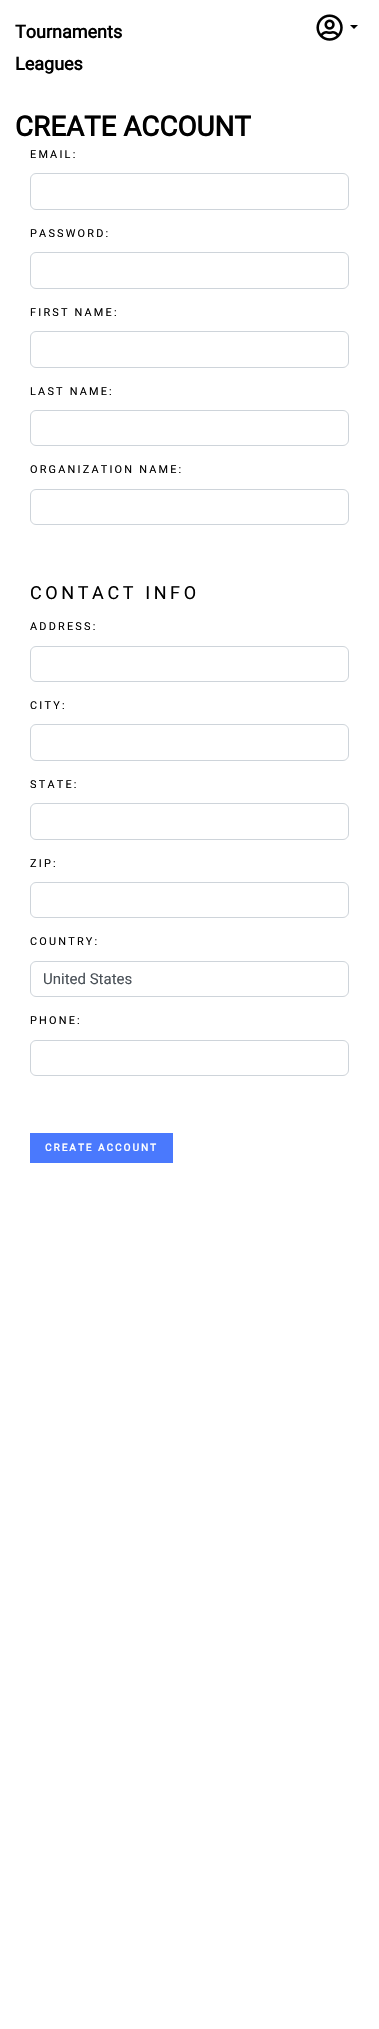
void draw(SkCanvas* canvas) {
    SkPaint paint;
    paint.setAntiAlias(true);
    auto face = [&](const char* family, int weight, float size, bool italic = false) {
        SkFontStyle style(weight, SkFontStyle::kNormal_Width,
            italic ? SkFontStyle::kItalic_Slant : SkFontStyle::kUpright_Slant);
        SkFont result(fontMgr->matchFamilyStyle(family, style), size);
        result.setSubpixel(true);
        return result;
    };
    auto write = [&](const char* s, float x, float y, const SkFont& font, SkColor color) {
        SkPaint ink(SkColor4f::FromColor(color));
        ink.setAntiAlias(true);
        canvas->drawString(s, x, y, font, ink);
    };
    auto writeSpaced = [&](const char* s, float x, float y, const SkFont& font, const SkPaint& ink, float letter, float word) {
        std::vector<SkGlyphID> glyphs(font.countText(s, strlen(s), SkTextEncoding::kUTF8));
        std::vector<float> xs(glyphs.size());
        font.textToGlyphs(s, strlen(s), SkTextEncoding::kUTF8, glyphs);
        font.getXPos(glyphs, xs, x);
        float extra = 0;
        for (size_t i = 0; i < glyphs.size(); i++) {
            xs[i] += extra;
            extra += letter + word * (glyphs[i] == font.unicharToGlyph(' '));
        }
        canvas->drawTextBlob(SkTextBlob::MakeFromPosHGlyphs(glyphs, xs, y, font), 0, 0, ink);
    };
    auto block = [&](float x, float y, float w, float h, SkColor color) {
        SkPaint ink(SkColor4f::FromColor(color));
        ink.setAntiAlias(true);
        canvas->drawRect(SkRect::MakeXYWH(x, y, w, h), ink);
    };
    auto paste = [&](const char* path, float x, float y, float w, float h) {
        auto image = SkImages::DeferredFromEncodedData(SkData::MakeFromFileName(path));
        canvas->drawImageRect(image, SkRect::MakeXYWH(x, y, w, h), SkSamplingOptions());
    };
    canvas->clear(SK_ColorWHITE);
    auto kFont1 = face("Roboto", 700, 18);
    write("Tournaments", 15, 38, kFont1, SK_ColorBLACK);
    write("Leagues", 15, 70, kFont1, SK_ColorBLACK);
    paste("pic1.png", 316, 14, 27, 27);
    paint.setColor(SK_ColorBLACK);
    canvas->drawPath(SkPathBuilder().moveTo(350, 25).lineTo(358, 25).lineTo(354, 29).close().detach(), paint);
    auto kFont2 = face("Roboto", 700, 27.75f);
    write("CREATE ACCOUNT", 15, 136, kFont2, SK_ColorBLACK);
    auto kFont3 = face("Roboto", 400, 10.9f);
    writeSpaced("EMAIL:", 30, 158, kFont3, paint, 2.2f, 0);
    paint.setStyle(SkPaint::kStroke_Style);
    paint.setStrokeWidth(1);
    paint.setColor(SkColorSetRGB(206, 212, 218));
    canvas->drawRoundRect(SkRect::MakeXYWH(30.5f, 173.5f, 318, 36), 5.5f, 5.5f, paint);
    paint.setStyle(SkPaint::kFill_Style);
    paint.setColor(SK_ColorBLACK);
    writeSpaced("PASSWORD:", 30, 237, kFont3, paint, 2.2f, 0);
    paint.setStyle(SkPaint::kStroke_Style);
    paint.setColor(SkColorSetRGB(206, 212, 218));
    canvas->drawRoundRect(SkRect::MakeXYWH(30.5f, 252.5f, 318, 36), 5.5f, 5.5f, paint);
    paint.setStyle(SkPaint::kFill_Style);
    paint.setColor(SK_ColorBLACK);
    writeSpaced("FIRST NAME:", 30, 316, kFont3, paint, 2.2f, 0);
    paint.setStyle(SkPaint::kStroke_Style);
    paint.setColor(SkColorSetRGB(206, 212, 218));
    canvas->drawRoundRect(SkRect::MakeXYWH(30.5f, 331.5f, 318, 36), 5.5f, 5.5f, paint);
    paint.setStyle(SkPaint::kFill_Style);
    paint.setColor(SK_ColorBLACK);
    writeSpaced("LAST NAME:", 30, 395, kFont3, paint, 2.2f, 0);
    paint.setStyle(SkPaint::kStroke_Style);
    paint.setColor(SkColorSetRGB(206, 212, 218));
    canvas->drawRoundRect(SkRect::MakeXYWH(30.5f, 410.5f, 318, 35), 5.5f, 5.5f, paint);
    paint.setStyle(SkPaint::kFill_Style);
    paint.setColor(SK_ColorBLACK);
    writeSpaced("ORGANIZATION NAME:", 30, 473, kFont3, paint, 2.2f, 0);
    paint.setStyle(SkPaint::kStroke_Style);
    paint.setColor(SkColorSetRGB(206, 212, 218));
    canvas->drawRoundRect(SkRect::MakeXYWH(30.5f, 489.5f, 318, 35), 5.5f, 5.5f, paint);
    auto kFont4 = face("Roboto", 400, 18);
    paint.setStyle(SkPaint::kFill_Style);
    paint.setColor(SK_ColorBLACK);
    writeSpaced("CONTACT INFO", 30, 599, kFont4, paint, 3.6f, 0);
    writeSpaced("ADDRESS:", 30, 630, kFont3, paint, 2.2f, 0);
    paint.setStyle(SkPaint::kStroke_Style);
    paint.setColor(SkColorSetRGB(206, 212, 218));
    canvas->drawRoundRect(SkRect::MakeXYWH(30.5f, 646.5f, 318, 35), 5.5f, 5.5f, paint);
    paint.setStyle(SkPaint::kFill_Style);
    paint.setColor(SK_ColorBLACK);
    writeSpaced("CITY:", 30, 709, kFont3, paint, 2.2f, 0);
    paint.setStyle(SkPaint::kStroke_Style);
    paint.setColor(SkColorSetRGB(206, 212, 218));
    canvas->drawRoundRect(SkRect::MakeXYWH(30.5f, 724.5f, 318, 36), 5.5f, 5.5f, paint);
    paint.setStyle(SkPaint::kFill_Style);
    paint.setColor(SK_ColorBLACK);
    writeSpaced("STATE:", 30, 788, kFont3, paint, 2.2f, 0);
    paint.setStyle(SkPaint::kStroke_Style);
    paint.setColor(SkColorSetRGB(206, 212, 218));
    canvas->drawRoundRect(SkRect::MakeXYWH(30.5f, 803.5f, 318, 36), 5.5f, 5.5f, paint);
    paint.setStyle(SkPaint::kFill_Style);
    paint.setColor(SK_ColorBLACK);
    writeSpaced("ZIP:", 30, 867, kFont3, paint, 2.2f, 0);
    paint.setStyle(SkPaint::kStroke_Style);
    paint.setColor(SkColorSetRGB(206, 212, 218));
    canvas->drawRoundRect(SkRect::MakeXYWH(30.5f, 882.5f, 318, 35), 5.5f, 5.5f, paint);
    paint.setStyle(SkPaint::kFill_Style);
    paint.setColor(SK_ColorBLACK);
    writeSpaced("COUNTRY:", 30, 945, kFont3, paint, 2.2f, 0);
    paint.setStyle(SkPaint::kStroke_Style);
    paint.setColor(SkColorSetRGB(206, 212, 218));
    canvas->drawRoundRect(SkRect::MakeXYWH(30.5f, 961.5f, 318, 35), 5.5f, 5.5f, paint);
    auto kFont5 = face("Roboto", 400, 15);
    write("United States", 43, 984, kFont5, SkColorSetRGB(73, 80, 87));
    paint.setStyle(SkPaint::kFill_Style);
    paint.setColor(SK_ColorBLACK);
    writeSpaced("PHONE:", 30, 1024, kFont3, paint, 2.2f, 0);
    paint.setStyle(SkPaint::kStroke_Style);
    paint.setColor(SkColorSetRGB(206, 212, 218));
    canvas->drawRoundRect(SkRect::MakeXYWH(30.5f, 1040.5f, 318, 35), 5.5f, 5.5f, paint);
    block(30, 1133, 143, 30, SkColorSetRGB(74, 121, 253));
    auto kFont6 = face("Roboto", 700, 10);
    paint.setStyle(SkPaint::kFill_Style);
    paint.setColor(SK_ColorWHITE);
    writeSpaced("CREATE ACCOUNT", 45, 1151, kFont6, paint, 2, 0);
}
